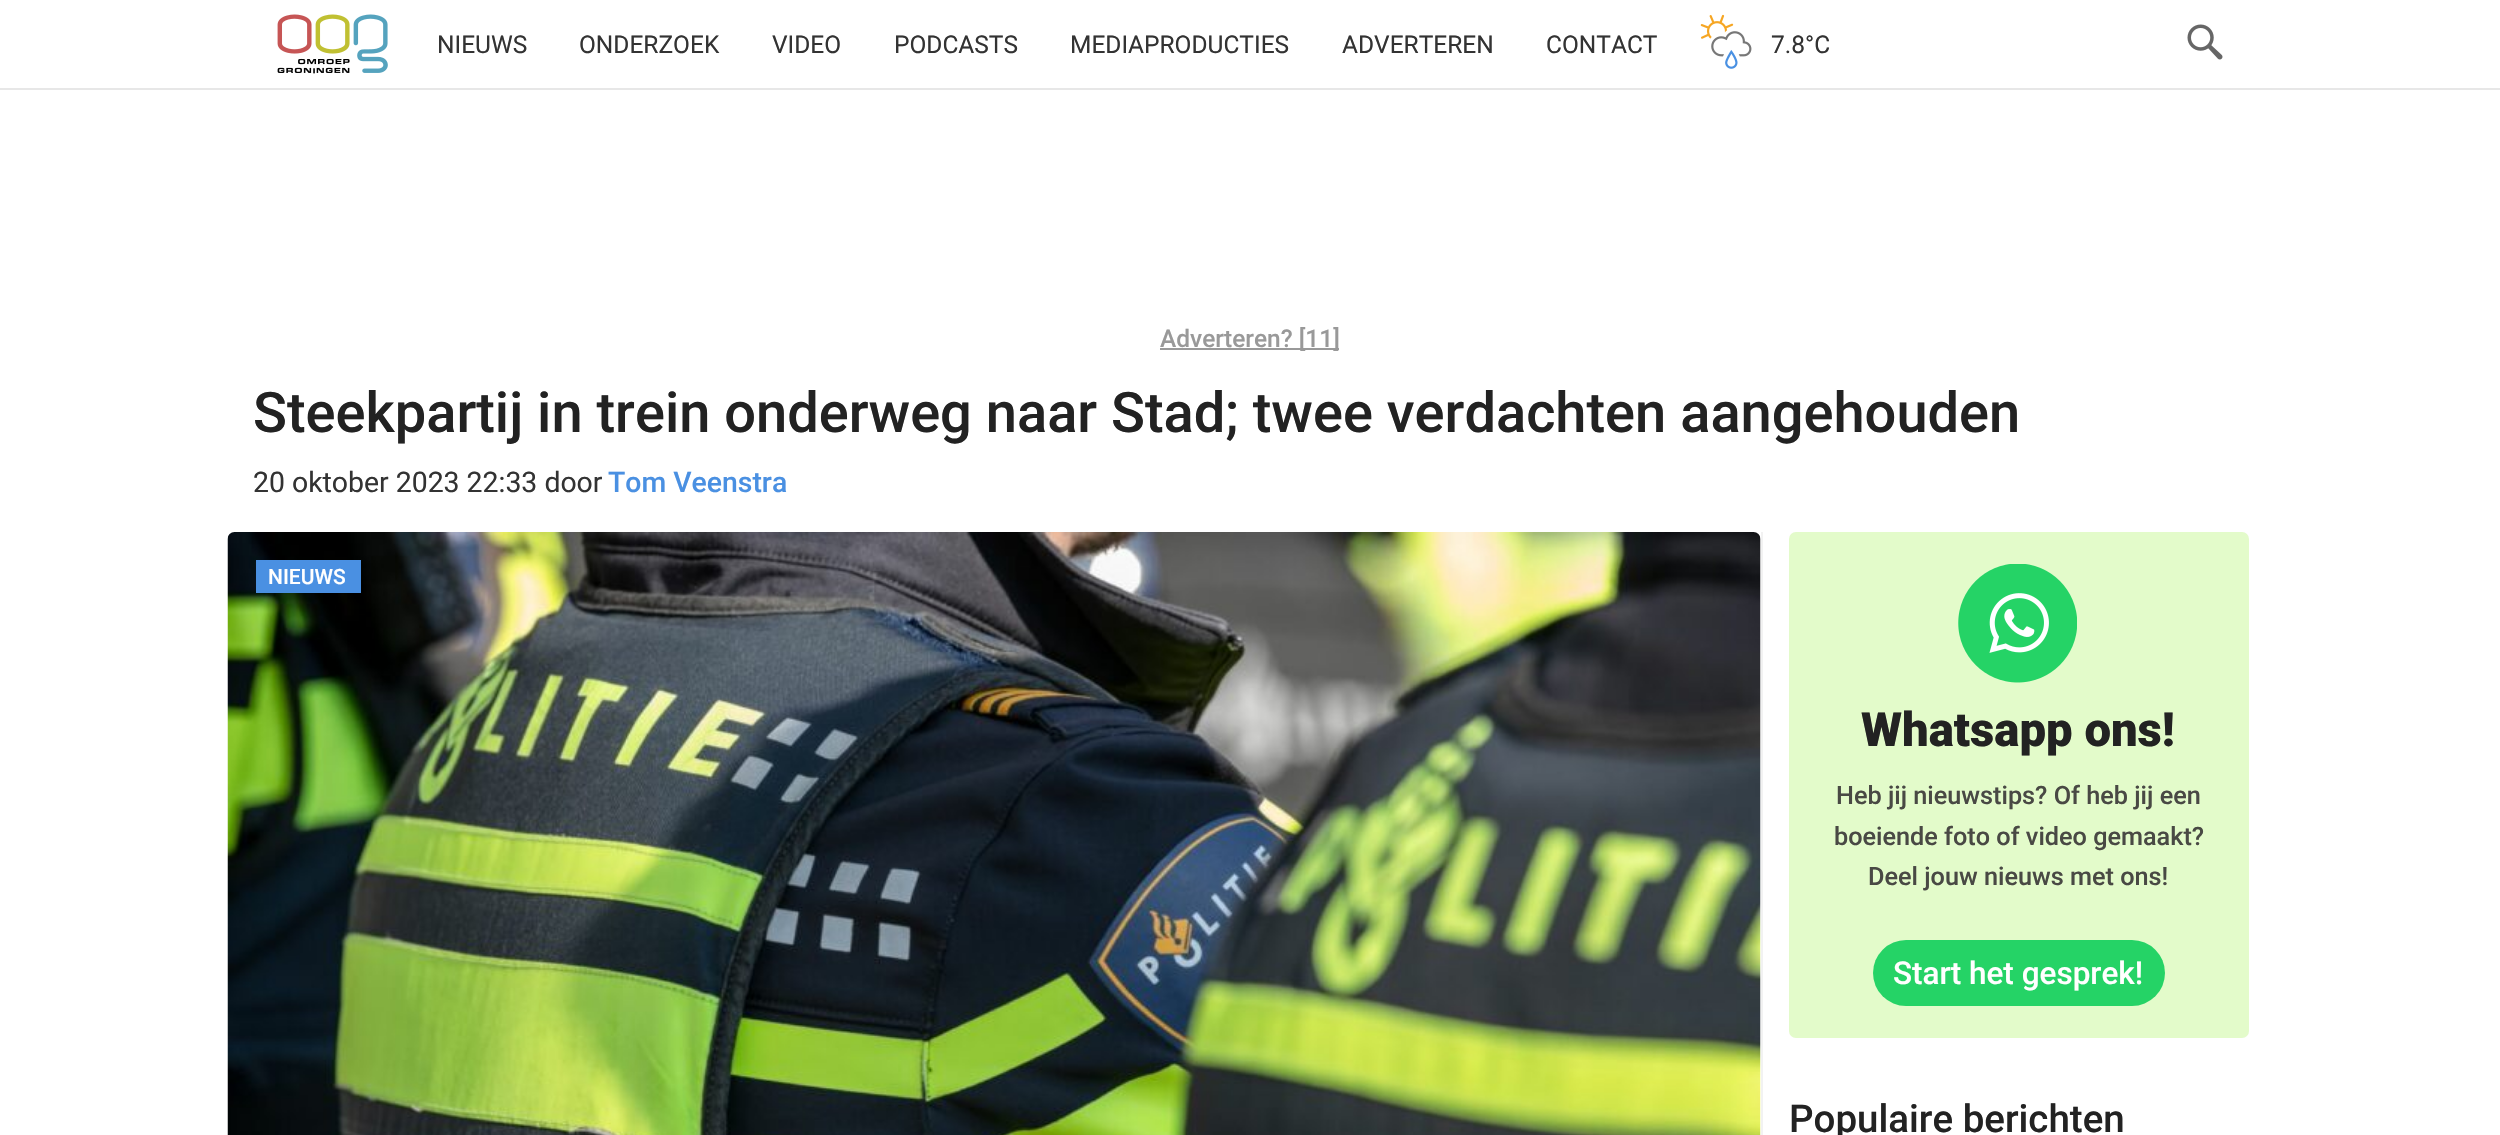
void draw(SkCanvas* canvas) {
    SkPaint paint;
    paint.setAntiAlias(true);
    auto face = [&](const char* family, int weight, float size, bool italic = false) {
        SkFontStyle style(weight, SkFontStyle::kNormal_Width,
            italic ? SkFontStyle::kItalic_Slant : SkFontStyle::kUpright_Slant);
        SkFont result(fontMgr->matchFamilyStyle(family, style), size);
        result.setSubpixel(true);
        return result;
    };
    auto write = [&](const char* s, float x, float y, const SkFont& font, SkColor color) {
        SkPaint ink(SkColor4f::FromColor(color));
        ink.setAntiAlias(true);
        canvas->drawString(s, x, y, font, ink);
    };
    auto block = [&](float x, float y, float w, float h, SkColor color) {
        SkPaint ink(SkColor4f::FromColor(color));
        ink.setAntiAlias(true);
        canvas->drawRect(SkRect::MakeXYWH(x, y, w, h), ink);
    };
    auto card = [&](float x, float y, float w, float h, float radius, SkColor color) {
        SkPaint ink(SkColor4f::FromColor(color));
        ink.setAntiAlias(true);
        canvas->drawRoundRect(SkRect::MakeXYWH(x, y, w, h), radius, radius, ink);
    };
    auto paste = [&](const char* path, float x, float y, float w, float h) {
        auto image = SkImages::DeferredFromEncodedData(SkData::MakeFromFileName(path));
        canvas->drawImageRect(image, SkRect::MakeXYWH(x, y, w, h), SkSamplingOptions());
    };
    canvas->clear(SK_ColorWHITE);
    block(0, 88, 2500, 2, SkColorSetRGB(231, 231, 231));
    paste("pic1.png", 277, 14, 111, 60);
    auto kFont1 = face("Roboto", 400, 24.5f);
    write("NIEUWS", 437, 53, kFont1, SkColorSetRGB(51, 51, 51));
    write("ONDERZOEK", 579, 53, kFont1, SkColorSetRGB(51, 51, 51));
    write("VIDEO", 772, 53, kFont1, SkColorSetRGB(51, 51, 51));
    write("PODCASTS", 894, 53, kFont1, SkColorSetRGB(51, 51, 51));
    write("MEDIAPRODUCTIES", 1070, 53, kFont1, SkColorSetRGB(51, 51, 51));
    write("ADVERTEREN", 1342, 53, kFont1, SkColorSetRGB(51, 51, 51));
    write("CONTACT", 1546, 53, kFont1, SkColorSetRGB(51, 51, 51));
    paste("pic2.png", 1700, 14, 52, 55);
    write("7.8°C", 1771, 53, kFont1, SkColorSetRGB(51, 51, 51));
    paste("pic3.png", 2187, 24, 36, 36);
    block(1160, 348, 179, 2, SkColorSetRGB(153, 153, 153));
    auto kFont2 = face("Roboto", 500, 24.5f);
    write("Adverteren? [11]", 1160, 347, kFont2, SkColorSetRGB(153, 153, 153));
    auto kFont3 = face("Roboto", 500, 56);
    write("Steekpartij in trein onderweg naar Stad; twee verdachten aangehouden", 253, 432, kFont3, SkColorSetRGB(34, 34, 34));
    auto kFont4 = face("Roboto", 400, 28.4f);
    write("20 oktober 2023 22:33 door", 253, 492, kFont4, SkColorSetRGB(51, 51, 51));
    auto kFont5 = face("Roboto", 500, 28.4f);
    write("Tom Veenstra", 608, 492, kFont5, SkColorSetRGB(74, 144, 226));
    block(1761, 532, 2, 603, SkColorSetRGB(242, 242, 242));
    paste("pic4.png", 227, 532, 1534, 603);
    block(256, 560, 105, 33, SkColorSetRGB(74, 144, 226));
    auto kFont6 = face("Roboto", 500, 21);
    write("NIEUWS", 268, 584, kFont6, SK_ColorWHITE);
    card(1789, 532, 460, 506, 7, SkColorSetRGB(227, 251, 202));
    paste("pic5.png", 1958, 564, 119, 119);
    auto kFont7 = face("Roboto", 900, 47.25f);
    write("Whatsapp ons!", 1861, 746, kFont7, SkColorSetRGB(34, 34, 34));
    auto kFont8 = face("Roboto", 500, 25.25f);
    write("Heb jij nieuwstips? Of heb jij een", 1836, 804, kFont8, SkColorSetRGB(73, 73, 68));
    write("boeiende foto of video gemaakt?", 1834, 845, kFont8, SkColorSetRGB(73, 73, 68));
    write("Deel jouw nieuws met ons!", 1868, 885, kFont8, SkColorSetRGB(73, 73, 68));
    card(1873, 940, 292, 66, 33, SkColorSetRGB(37, 211, 102));
    auto kFont9 = face("Roboto", 500, 31.5f);
    write("Start het gesprek!", 1893, 984, kFont9, SK_ColorWHITE);
    auto kFont10 = face("Roboto", 500, 38.5f);
    write("Populaire berichten", 1789, 1132, kFont10, SkColorSetRGB(34, 34, 34));
}
